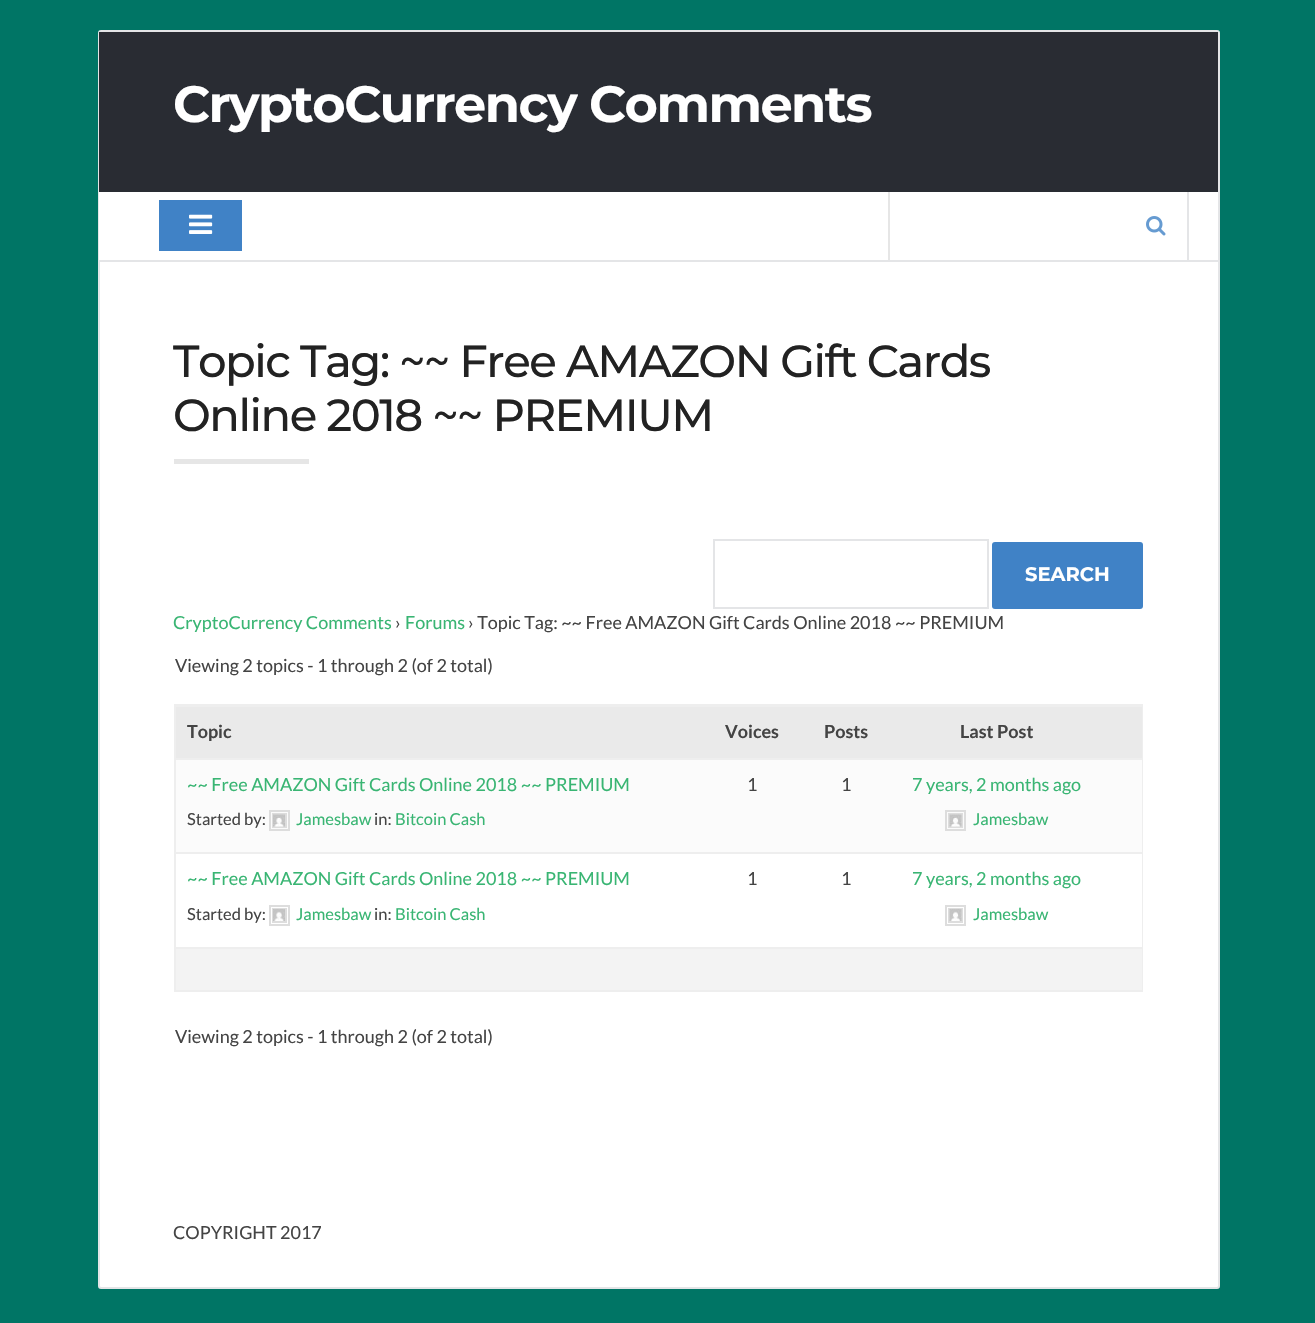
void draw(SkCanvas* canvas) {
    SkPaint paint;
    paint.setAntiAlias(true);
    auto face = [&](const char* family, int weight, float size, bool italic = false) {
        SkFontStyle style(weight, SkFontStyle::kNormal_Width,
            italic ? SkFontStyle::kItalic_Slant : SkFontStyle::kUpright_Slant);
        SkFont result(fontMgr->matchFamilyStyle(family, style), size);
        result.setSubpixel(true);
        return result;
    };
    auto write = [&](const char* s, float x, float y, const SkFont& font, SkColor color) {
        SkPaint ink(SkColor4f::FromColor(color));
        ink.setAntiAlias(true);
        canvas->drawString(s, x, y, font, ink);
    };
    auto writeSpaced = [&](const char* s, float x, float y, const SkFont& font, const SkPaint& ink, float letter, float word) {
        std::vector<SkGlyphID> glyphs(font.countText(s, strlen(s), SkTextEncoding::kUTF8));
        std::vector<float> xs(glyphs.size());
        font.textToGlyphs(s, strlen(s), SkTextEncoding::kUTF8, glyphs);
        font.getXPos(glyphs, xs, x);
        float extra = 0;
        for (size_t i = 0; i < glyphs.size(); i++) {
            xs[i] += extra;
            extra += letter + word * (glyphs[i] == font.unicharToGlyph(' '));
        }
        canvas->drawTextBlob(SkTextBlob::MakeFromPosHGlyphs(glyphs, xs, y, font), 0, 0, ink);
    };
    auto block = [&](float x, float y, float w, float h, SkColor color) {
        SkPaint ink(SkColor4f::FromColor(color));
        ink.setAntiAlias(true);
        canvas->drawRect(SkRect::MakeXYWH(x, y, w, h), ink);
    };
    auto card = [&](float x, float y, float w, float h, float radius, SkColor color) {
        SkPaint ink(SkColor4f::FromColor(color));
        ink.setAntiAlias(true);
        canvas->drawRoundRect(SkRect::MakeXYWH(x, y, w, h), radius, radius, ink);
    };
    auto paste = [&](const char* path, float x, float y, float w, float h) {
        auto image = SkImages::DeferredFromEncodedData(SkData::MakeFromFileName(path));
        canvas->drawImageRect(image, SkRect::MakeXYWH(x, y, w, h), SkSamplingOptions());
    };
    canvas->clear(SkColorSetRGB(0, 117, 101));
    paint.setColor(SK_ColorWHITE);
    canvas->drawRoundRect(SkRect::MakeXYWH(99, 31, 1120, 1257), 2, 2, paint);
    paint.setStyle(SkPaint::kStroke_Style);
    paint.setStrokeWidth(2);
    paint.setColor(SkColorSetRGB(228, 229, 231));
    canvas->drawRoundRect(SkRect::MakeXYWH(99, 31, 1120, 1257), 2, 2, paint);
    block(99, 32, 1119, 160, SkColorSetRGB(41, 44, 51));
    auto kFont1 = face("Montserrat", 700, 51);
    paint.setStyle(SkPaint::kFill_Style);
    paint.setColor(SK_ColorWHITE);
    writeSpaced("CryptoCurrency Comments", 173, 122, kFont1, paint, -1.5f, 0);
    block(99, 192, 1, 68, SK_ColorWHITE);
    block(99, 260, 1119, 2, SkColorSetRGB(228, 229, 231));
    block(159, 200, 83, 51, SkColorSetRGB(64, 130, 198));
    paste("pic1.png", 189, 214, 24, 20);
    block(1187, 192, 2, 68, SkColorSetRGB(228, 229, 231));
    block(888, 192, 2, 68, SkColorSetRGB(230, 230, 230));
    paste("pic2.png", 1146, 216, 20, 20);
    auto kFont2 = face("Montserrat", 500, 45);
    paint.setColor(SkColorSetRGB(34, 34, 34));
    writeSpaced("Topic Tag: ~~ Free AMAZON Gift Cards", 173, 377, kFont2, paint, -1.5f, 0);
    writeSpaced("Online 2018 ~~ PREMIUM", 173, 431, kFont2, paint, -1.5f, 0);
    block(174, 459, 135, 5, SkColorSetRGB(230, 230, 230));
    paint.setStyle(SkPaint::kStroke_Style);
    paint.setColor(SkColorSetRGB(228, 229, 231));
    canvas->drawRect(SkRect::MakeXYWH(714, 540, 274, 68), paint);
    card(992, 542, 151, 67, 3, SkColorSetRGB(64, 130, 198));
    auto kFont3 = face("Montserrat", 700, 19.5f);
    write("SEARCH", 1025, 581, kFont3, SK_ColorWHITE);
    auto kFont4 = face("Lato", 400, 18);
    write("CryptoCurrency Comments", 173, 629, kFont4, SkColorSetRGB(57, 181, 115));
    write("›", 395, 629, kFont4, SkColorSetRGB(68, 68, 68));
    write("Forums", 405, 629, kFont4, SkColorSetRGB(57, 181, 115));
    write("› Topic Tag: ~~ Free AMAZON Gift Cards Online 2018 ~~ PREMIUM", 468, 629, kFont4, SkColorSetRGB(68, 68, 68));
    write("Viewing 2 topics - 1 through 2 (of 2 total)", 175, 672, kFont4, SkColorSetRGB(68, 68, 68));
    paint.setColor(SkColorSetRGB(238, 238, 238));
    canvas->drawRect(SkRect::MakeXYWH(175, 705, 967, 286), paint);
    block(176, 707, 966, 51, SkColorSetRGB(234, 234, 234));
    block(176, 706, 966, 1, SkColorSetRGB(238, 238, 238));
    auto kFont5 = face("Lato", 700, 18);
    write("Topic", 187, 738, kFont5, SkColorSetRGB(68, 68, 68));
    write("Voices", 725, 738, kFont5, SkColorSetRGB(68, 68, 68));
    write("Posts", 824, 738, kFont5, SkColorSetRGB(68, 68, 68));
    write("Last Post", 960, 738, kFont5, SkColorSetRGB(68, 68, 68));
    block(176, 760, 966, 92, SkColorSetRGB(251, 251, 251));
    block(176, 758, 966, 2, SkColorSetRGB(238, 238, 238));
    write("~~ Free AMAZON Gift Cards Online 2018 ~~ PREMIUM", 187, 791, kFont4, SkColorSetRGB(57, 181, 115));
    auto kFont6 = face("Lato", 400, 16.5f);
    write("Started by:", 187, 825, kFont6, SkColorSetRGB(68, 68, 68));
    paint.setColor(SkColorSetRGB(221, 221, 221));
    canvas->drawRect(SkRect::MakeXYWH(270, 811, 19, 19), paint);
    canvas->drawRect(SkRect::MakeXYWH(273, 814, 13, 13), paint);
    paste("pic3.png", 273, 814, 12, 13);
    write("Jamesbaw", 296, 825, kFont6, SkColorSetRGB(57, 181, 115));
    write("in:", 374, 825, kFont6, SkColorSetRGB(68, 68, 68));
    write("Bitcoin Cash", 395, 825, kFont6, SkColorSetRGB(57, 181, 115));
    write("1", 747, 791, kFont4, SkColorSetRGB(68, 68, 68));
    write("1", 841, 791, kFont4, SkColorSetRGB(68, 68, 68));
    write("7 years, 2 months ago", 912, 791, kFont4, SkColorSetRGB(57, 181, 115));
    canvas->drawRect(SkRect::MakeXYWH(946, 811, 19, 19), paint);
    canvas->drawRect(SkRect::MakeXYWH(949, 814, 13, 13), paint);
    paste("pic4.png", 949, 814, 13, 13);
    write("Jamesbaw", 973, 825, kFont6, SkColorSetRGB(57, 181, 115));
    block(1141, 854, 1, 93, SK_ColorWHITE);
    block(176, 852, 966, 2, SkColorSetRGB(238, 238, 238));
    write("~~ Free AMAZON Gift Cards Online 2018 ~~ PREMIUM", 187, 885, kFont4, SkColorSetRGB(57, 181, 115));
    write("Started by:", 187, 920, kFont6, SkColorSetRGB(68, 68, 68));
    canvas->drawRect(SkRect::MakeXYWH(270, 906, 19, 19), paint);
    canvas->drawRect(SkRect::MakeXYWH(273, 909, 13, 13), paint);
    paste("pic5.png", 273, 909, 12, 12);
    write("Jamesbaw", 296, 920, kFont6, SkColorSetRGB(57, 181, 115));
    write("in:", 374, 920, kFont6, SkColorSetRGB(68, 68, 68));
    write("Bitcoin Cash", 395, 920, kFont6, SkColorSetRGB(57, 181, 115));
    write("1", 747, 885, kFont4, SkColorSetRGB(68, 68, 68));
    write("1", 841, 885, kFont4, SkColorSetRGB(68, 68, 68));
    write("7 years, 2 months ago", 912, 885, kFont4, SkColorSetRGB(57, 181, 115));
    canvas->drawRect(SkRect::MakeXYWH(946, 906, 19, 19), paint);
    canvas->drawRect(SkRect::MakeXYWH(949, 909, 13, 13), paint);
    paste("pic6.png", 949, 909, 13, 12);
    write("Jamesbaw", 973, 920, kFont6, SkColorSetRGB(57, 181, 115));
    block(176, 949, 966, 41, SkColorSetRGB(243, 243, 243));
    block(176, 947, 966, 2, SkColorSetRGB(238, 238, 238));
    write("Viewing 2 topics - 1 through 2 (of 2 total)", 175, 1043, kFont4, SkColorSetRGB(68, 68, 68));
    write("COPYRIGHT 2017", 173, 1239, kFont4, SkColorSetRGB(68, 68, 68));
}
